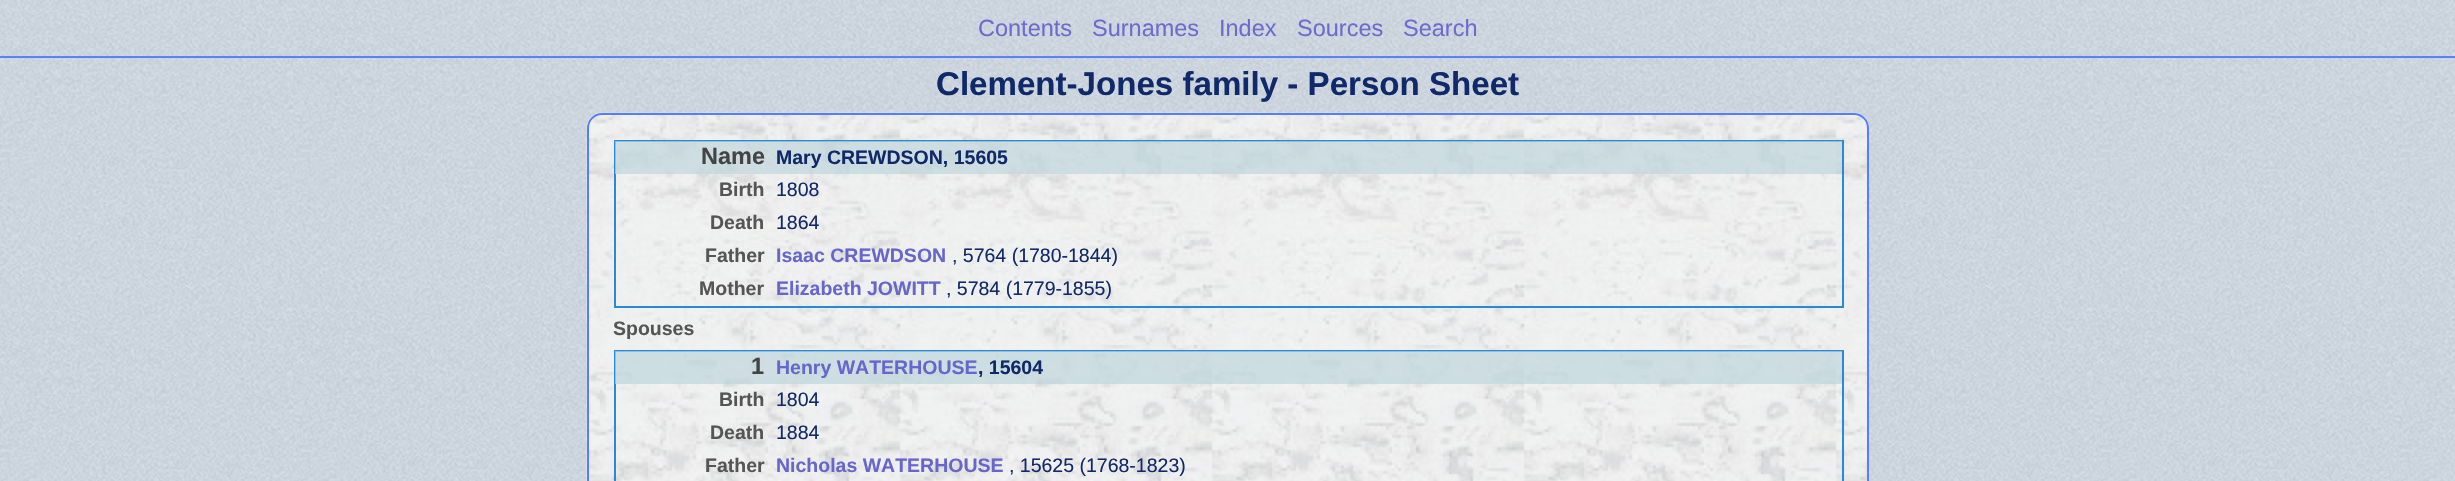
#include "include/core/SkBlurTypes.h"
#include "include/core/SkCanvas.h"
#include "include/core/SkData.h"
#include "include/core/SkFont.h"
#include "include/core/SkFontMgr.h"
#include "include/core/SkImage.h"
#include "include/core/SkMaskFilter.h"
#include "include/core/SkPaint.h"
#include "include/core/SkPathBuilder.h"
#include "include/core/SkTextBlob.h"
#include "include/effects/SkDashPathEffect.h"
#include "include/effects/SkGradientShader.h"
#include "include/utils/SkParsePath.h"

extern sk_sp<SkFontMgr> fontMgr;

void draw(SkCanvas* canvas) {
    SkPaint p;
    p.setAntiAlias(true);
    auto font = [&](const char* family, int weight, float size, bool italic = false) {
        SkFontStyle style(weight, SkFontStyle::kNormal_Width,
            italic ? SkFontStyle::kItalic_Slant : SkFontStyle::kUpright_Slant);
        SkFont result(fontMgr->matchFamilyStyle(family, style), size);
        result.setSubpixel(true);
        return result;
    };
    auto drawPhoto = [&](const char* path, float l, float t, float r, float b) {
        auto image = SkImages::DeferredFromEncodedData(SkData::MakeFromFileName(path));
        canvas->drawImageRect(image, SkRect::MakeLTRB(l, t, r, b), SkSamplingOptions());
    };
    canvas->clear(0xFFFFFFFF);
    drawPhoto("media/1.png", 0, 0, 2455, 481);
    p.setColor(0xF2567EFC);
    canvas->drawRect(SkRect::MakeLTRB(0, 56, 2455, 58), p);
    drawPhoto("media/2.png", 0, 56, 2455, 57);
    canvas->drawRect(SkRect::MakeLTRB(0, 56, 2455, 58), p);
    auto font1 = font("Liberation Sans", 400, 23.5f);
    p.setColor(0xFF6B6CCD);
    {
        const struct { const char* s; float x, y; } items[] = {
            {"Contents", 978, 36},
            {"Surnames", 1092, 36},
            {"Index", 1219, 36},
            {"Sources", 1297, 36},
            {"Search", 1403, 36},
        };
        for (auto [s, x, y] : items) {
            canvas->drawString(s, x, y, font1, p);
        }
    }
    auto font2 = font("Liberation Sans", 700, 33.1f);
    p.setColor(0xFF102A69);
    canvas->drawString("Clement-Jones family - Person Sheet", 936, 95, font2, p);
    drawPhoto("media/3.png", 586, 112, 1869, 481);
    p.setStyle(SkPaint::kStroke_Style);
    p.setStrokeWidth(2);
    p.setColor(0xFF567EFC);
    canvas->drawRoundRect(SkRect::MakeLTRB(588, 114, 1868, 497), 14, 14, p);
    p.setColor(0xFF2989D3);
    canvas->drawRect(SkRect::MakeLTRB(615, 141, 1843, 307), p);
    p.setStyle(SkPaint::kFill_Style);
    p.setColor(0xB3BFD6DD);
    canvas->drawRect(SkRect::MakeLTRB(615, 141, 1842, 174), p);
    auto font3 = font("Liberation Sans", 700, 23.5f);
    p.setColor(0xFF444444);
    canvas->drawString("Name", 701, 164, font3, p);
    auto font4 = font("Liberation Sans", 700, 19.5f);
    p.setColor(0xFF102A69);
    canvas->drawString("Mary CREWDSON, 15605", 776, 164, font4, p);
    p.setColor(0xFF555555);
    canvas->drawString("Birth", 719, 196, font4, p);
    auto font5 = font("Liberation Sans", 400, 19.5f);
    p.setColor(0xFF102A69);
    canvas->drawString("1808", 776, 196, font5, p);
    p.setColor(0xFF555555);
    canvas->drawString("Death", 710, 229, font4, p);
    p.setColor(0xFF102A69);
    canvas->drawString("1864", 776, 229, font5, p);
    p.setColor(0xFF555555);
    canvas->drawString("Father", 705, 262, font4, p);
    p.setColor(0xFF6666CC);
    canvas->drawString("Isaac CREWDSON", 776, 262, font4, p);
    p.setColor(0xFF102A69);
    canvas->drawString(", 5764 (1780-1844)", 952, 262, font5, p);
    p.setColor(0xFF555555);
    canvas->drawString("Mother", 699, 295, font4, p);
    p.setColor(0xFF6666CC);
    canvas->drawString("Elizabeth JOWITT", 776, 295, font4, p);
    p.setColor(0xFF102A69);
    canvas->drawString(", 5784 (1779-1855)", 946, 295, font5, p);
    p.setColor(0xFF555555);
    canvas->drawString("Spouses", 613, 335, font4, p);
    p.setStyle(SkPaint::kStroke_Style);
    p.setColor(0xFF2989D3);
    canvas->drawRect(SkRect::MakeLTRB(615, 351, 1843, 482), p);
    p.setStyle(SkPaint::kFill_Style);
    p.setColor(0xB3BFD6DD);
    canvas->drawRect(SkRect::MakeLTRB(615, 351, 1842, 384), p);
    p.setColor(0xFF444444);
    canvas->drawString("1", 751, 374, font3, p);
    p.setColor(0xFF6666CC);
    canvas->drawString("Henry WATERHOUSE", 776, 374, font4, p);
    p.setColor(0xFF102A69);
    canvas->drawString(", 15604", 978, 374, font4, p);
    p.setColor(0xFF555555);
    canvas->drawString("Birth", 719, 406, font4, p);
    p.setColor(0xFF102A69);
    canvas->drawString("1804", 776, 406, font5, p);
    p.setColor(0xFF555555);
    canvas->drawString("Death", 710, 439, font4, p);
    p.setColor(0xFF102A69);
    canvas->drawString("1884", 776, 439, font5, p);
    p.setColor(0xFF555555);
    canvas->drawString("Father", 705, 472, font4, p);
    p.setColor(0xFF6666CC);
    canvas->drawString("Nicholas WATERHOUSE", 776, 472, font4, p);
    p.setColor(0xFF102A69);
    canvas->drawString(", 15625 (1768-1823)", 1009, 472, font5, p);
}
